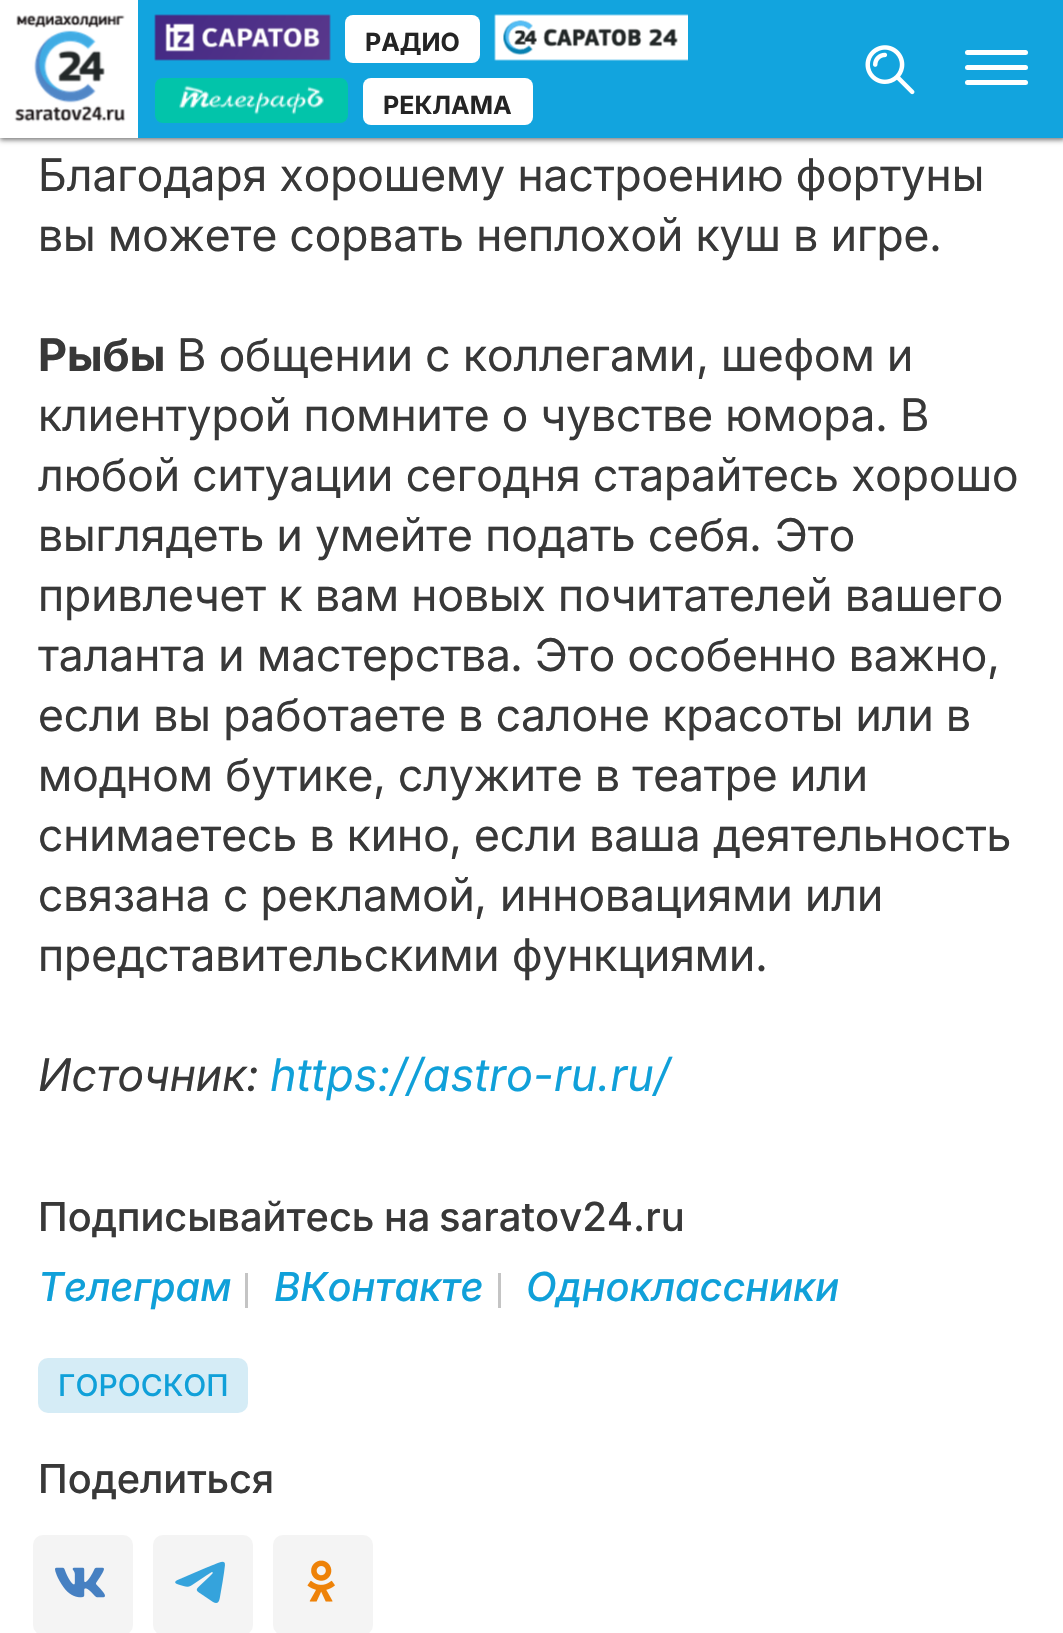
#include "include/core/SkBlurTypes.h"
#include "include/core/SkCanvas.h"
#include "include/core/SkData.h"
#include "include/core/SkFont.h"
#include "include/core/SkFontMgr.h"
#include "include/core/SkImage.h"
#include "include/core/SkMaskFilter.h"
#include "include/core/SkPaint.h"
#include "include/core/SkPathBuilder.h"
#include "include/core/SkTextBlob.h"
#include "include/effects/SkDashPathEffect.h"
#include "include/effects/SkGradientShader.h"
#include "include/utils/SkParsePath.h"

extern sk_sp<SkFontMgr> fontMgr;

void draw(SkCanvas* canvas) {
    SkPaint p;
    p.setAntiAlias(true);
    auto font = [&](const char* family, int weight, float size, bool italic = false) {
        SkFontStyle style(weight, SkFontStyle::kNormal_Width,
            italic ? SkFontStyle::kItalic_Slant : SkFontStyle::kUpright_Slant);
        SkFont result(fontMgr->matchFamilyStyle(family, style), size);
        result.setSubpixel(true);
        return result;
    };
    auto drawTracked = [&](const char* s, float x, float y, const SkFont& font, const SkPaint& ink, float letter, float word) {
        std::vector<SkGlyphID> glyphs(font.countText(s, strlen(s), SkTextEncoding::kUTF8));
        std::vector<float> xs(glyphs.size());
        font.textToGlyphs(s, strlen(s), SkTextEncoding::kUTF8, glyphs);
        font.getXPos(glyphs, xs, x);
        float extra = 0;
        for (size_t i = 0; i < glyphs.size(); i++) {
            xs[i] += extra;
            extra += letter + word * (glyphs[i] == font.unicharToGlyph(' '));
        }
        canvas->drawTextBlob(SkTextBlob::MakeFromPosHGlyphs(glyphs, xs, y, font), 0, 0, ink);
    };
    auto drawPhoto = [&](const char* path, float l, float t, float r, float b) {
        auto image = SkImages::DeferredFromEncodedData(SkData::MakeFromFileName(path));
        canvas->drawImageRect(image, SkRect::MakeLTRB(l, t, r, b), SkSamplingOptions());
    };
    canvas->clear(0xFFFFFFFF);
    p.setColor(0xFF787878);
    p.setMaskFilter(SkMaskFilter::MakeBlur(kNormal_SkBlurStyle, 2.5f));
    canvas->drawRect(SkRect::MakeLTRB(0, 3, 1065, 140), p);
    p.setMaskFilter(nullptr);
    p.setColor(0xFF12A4DE);
    canvas->drawRect(SkRect::MakeLTRB(138, 0, 1063, 138), p);
    p.setColor(0xFFFFFFFF);
    canvas->drawRect(SkRect::MakeLTRB(0, 0, 138, 138), p);
    drawPhoto("media/1.png", 14, 15, 126, 122);
    drawPhoto("media/2.png", 154, 14, 331, 61);
    canvas->drawRoundRect(SkRect::MakeLTRB(345, 15, 480, 63), 8, 8, p);
    auto font1 = font("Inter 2", 700, 25);
    p.setColor(0xFF242424);
    canvas->drawString("РАДИО", 365, 51, font1, p);
    drawPhoto("media/3.png", 494, 14, 688, 61);
    p.setColor(0xFF02C4AA);
    canvas->drawRoundRect(SkRect::MakeLTRB(155, 78, 348, 123), 8, 8, p);
    drawPhoto("media/4.png", 179, 85, 324, 115);
    p.setColor(0xFFFFFFFF);
    canvas->drawRoundRect(SkRect::MakeLTRB(363, 78, 533, 125), 8, 8, p);
    p.setColor(0xFF242424);
    canvas->drawString("РЕКЛАМА", 383, 114, font1, p);
    drawPhoto("media/5.png", 865, 45, 915, 95);
    p.setColor(0xFFFFFFFF);
    canvas->drawRoundRect(SkRect::MakeLTRB(965, 50, 1028, 55), 2.5f, 2.5f, p);
    canvas->drawRoundRect(SkRect::MakeLTRB(965, 65, 1028, 70), 2.5f, 2.5f, p);
    canvas->drawRoundRect(SkRect::MakeLTRB(965, 80, 1028, 85), 2.5f, 2.5f, p);
    auto font2 = font("Inter", 400, 45);
    p.setColor(0xFF383838);
    canvas->drawString("Благодаря хорошему настроению фортуны", 38, 191, font2, p);
    canvas->drawString("вы можете сорвать неплохой куш в игре", 38, 251, font2, p);
    auto font3 = font("Inter 2", 400, 45);
    canvas->drawString(".", 929, 251, font3, p);
    auto font4 = font("Inter", 700, 45);
    canvas->drawString("Рыбы", 38, 371, font4, p);
    canvas->drawString("В общении с коллегами", 177, 371, font2, p);
    canvas->drawString(",", 696, 371, font3, p);
    canvas->drawString("шефом и", 721, 371, font2, p);
    canvas->drawString("клиентурой помните о чувстве юмора", 38, 431, font2, p);
    canvas->drawString(".", 875, 431, font3, p);
    {
        const struct { const char* s; float x, y; } items[] = {
            {"В", 900, 431},
            {"любой ситуации сегодня старайтесь хорошо", 38, 491},
            {"выглядеть и умейте подать себя", 38, 551},
        };
        for (auto [s, x, y] : items) {
            canvas->drawString(s, x, y, font2, p);
        }
    }
    canvas->drawString(".", 749, 551, font3, p);
    {
        const struct { const char* s; float x, y; } items[] = {
            {"Это", 775, 551},
            {"привлечет к вам новых почитателей вашего", 38, 611},
            {"таланта и мастерства", 38, 671},
        };
        for (auto [s, x, y] : items) {
            canvas->drawString(s, x, y, font2, p);
        }
    }
    canvas->drawString(".", 510, 671, font3, p);
    canvas->drawString("Это особенно важно", 535, 671, font2, p);
    canvas->drawString(",", 987, 671, font3, p);
    canvas->drawString("если вы работаете в салоне красоты или в", 38, 731, font2, p);
    canvas->drawString("модном бутике", 38, 791, font2, p);
    canvas->drawString(",", 373, 791, font3, p);
    canvas->drawString("служите в театре или", 398, 791, font2, p);
    canvas->drawString("снимаетесь в кино", 38, 851, font2, p);
    canvas->drawString(",", 449, 851, font3, p);
    canvas->drawString("если ваша деятельность", 474, 851, font2, p);
    canvas->drawString("связана с рекламой", 38, 911, font2, p);
    canvas->drawString(",", 474, 911, font3, p);
    canvas->drawString("инновациями или", 500, 911, font2, p);
    canvas->drawString("представительскими функциями", 38, 971, font2, p);
    canvas->drawString(".", 755, 971, font3, p);
    auto font5 = font("Inter", 400, 45, true);
    canvas->drawString("Источник", 38, 1091, font5, p);
    auto font6 = font("Inter 2", 400, 45, true);
    canvas->drawString(":", 246, 1091, font6, p);
    p.setColor(0xFF10A0D9);
    canvas->drawString("https://astro-ru.ru/", 270, 1091, font6, p);
    auto font7 = font("Inter", 500, 40);
    p.setColor(0xFF383838);
    drawTracked("Подписывайтесь на", 38, 1231, font7, p, 0, -1);
    auto font8 = font("Inter 2", 500, 40);
    canvas->drawString("saratov24.ru", 439, 1231, font8, p);
    auto font9 = font("Inter", 500, 40, true);
    p.setColor(0xFF10A0D9);
    canvas->drawString("Телеграм", 38, 1301, font9, p);
    p.setColor(0xFFC4C4C4);
    canvas->drawRect(SkRect::MakeLTRB(245, 1273, 248, 1308), p);
    p.setColor(0xFF10A0D9);
    canvas->drawString("ВКонтакте", 274, 1301, font9, p);
    p.setColor(0xFFC4C4C4);
    canvas->drawRect(SkRect::MakeLTRB(498, 1273, 501, 1308), p);
    p.setColor(0xFF10A0D9);
    canvas->drawString("Одноклассники", 526, 1301, font9, p);
    p.setColor(0xFFD5ECF6);
    canvas->drawRoundRect(SkRect::MakeLTRB(38, 1358, 248, 1413), 10, 10, p);
    auto font10 = font("Inter 2", 500, 30);
    p.setColor(0xFF10A0D9);
    canvas->drawString("ГОРОСКОП", 58, 1396, font10, p);
    p.setColor(0xFF383838);
    canvas->drawString("Поделиться", 38, 1493, font7, p);
    p.setColor(0xFFF4F4F4);
    canvas->drawRoundRect(SkRect::MakeLTRB(33, 1535, 133, 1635), 10, 10, p);
    drawPhoto("media/6.png", 55, 1567, 105, 1598);
    canvas->drawRoundRect(SkRect::MakeLTRB(153, 1535, 253, 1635), 10, 10, p);
    drawPhoto("media/7.png", 175, 1561, 225, 1603);
    canvas->drawRoundRect(SkRect::MakeLTRB(273, 1535, 373, 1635), 10, 10, p);
    drawPhoto("media/8.png", 307, 1560, 335, 1602);
}
